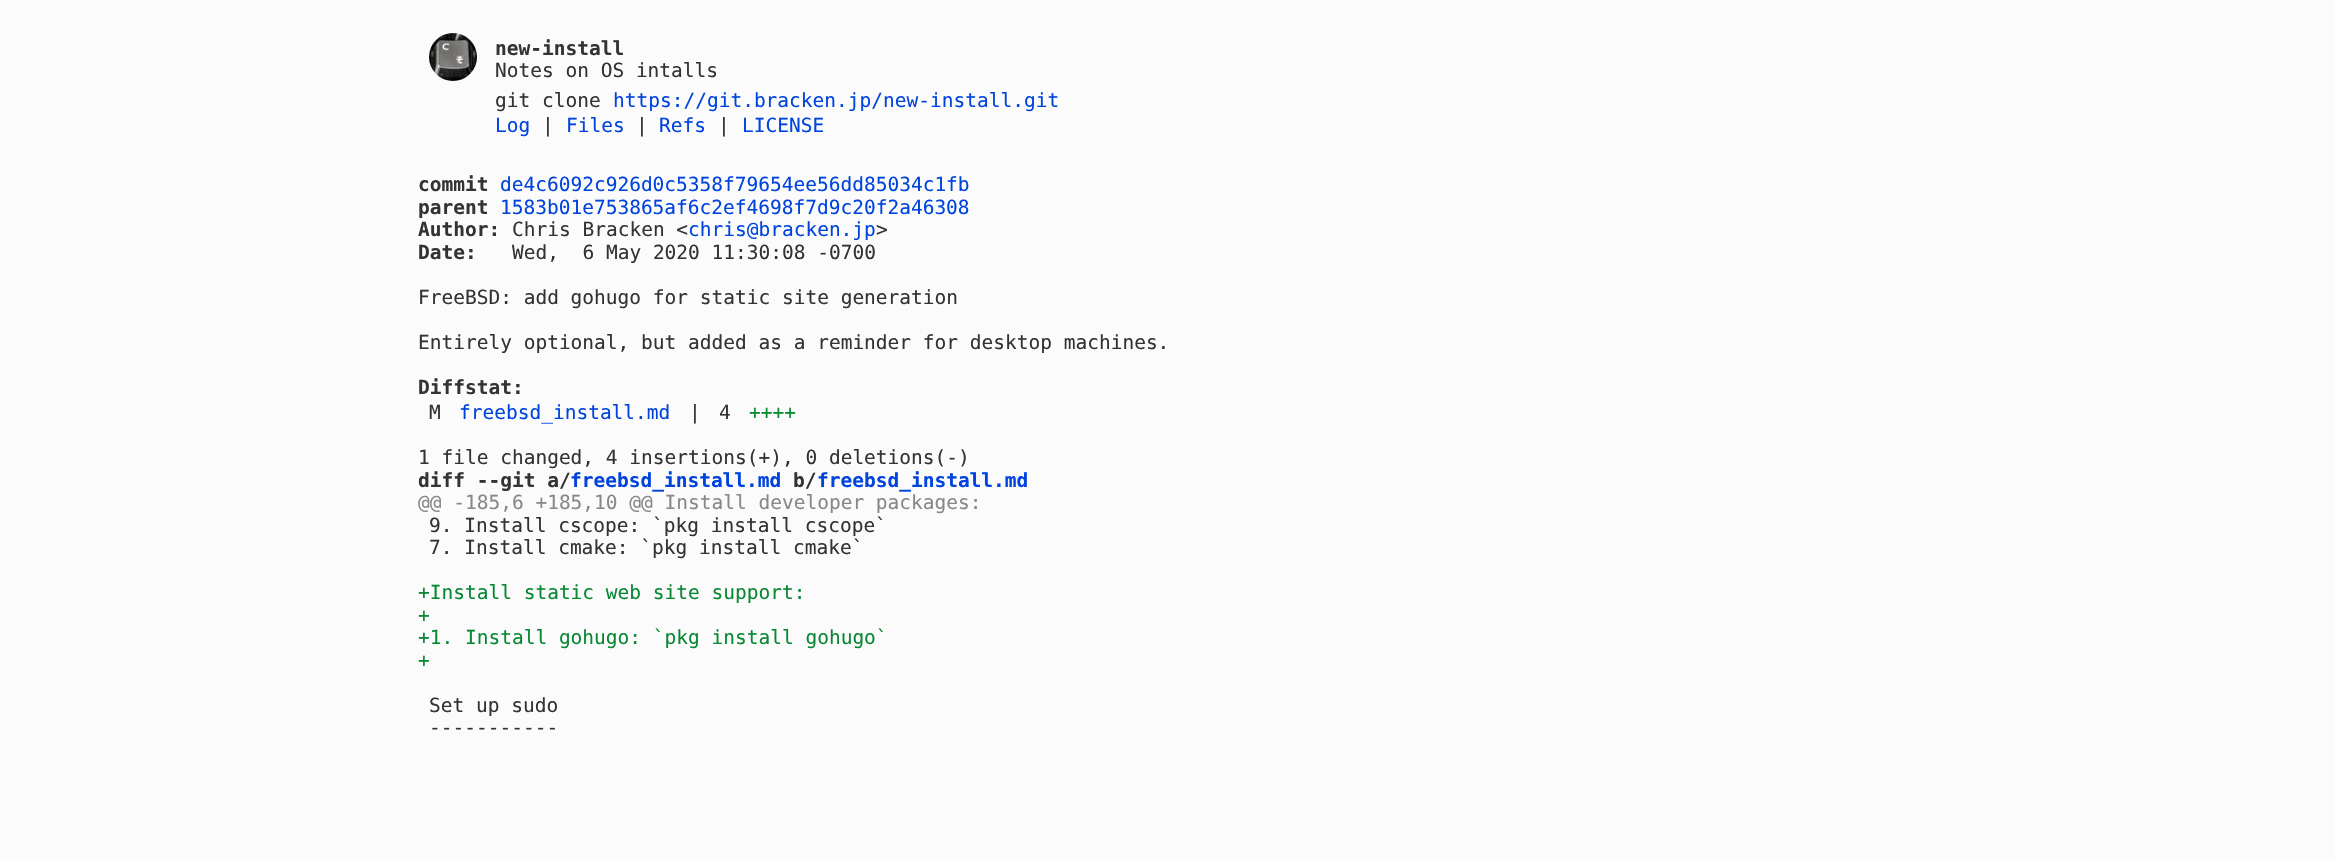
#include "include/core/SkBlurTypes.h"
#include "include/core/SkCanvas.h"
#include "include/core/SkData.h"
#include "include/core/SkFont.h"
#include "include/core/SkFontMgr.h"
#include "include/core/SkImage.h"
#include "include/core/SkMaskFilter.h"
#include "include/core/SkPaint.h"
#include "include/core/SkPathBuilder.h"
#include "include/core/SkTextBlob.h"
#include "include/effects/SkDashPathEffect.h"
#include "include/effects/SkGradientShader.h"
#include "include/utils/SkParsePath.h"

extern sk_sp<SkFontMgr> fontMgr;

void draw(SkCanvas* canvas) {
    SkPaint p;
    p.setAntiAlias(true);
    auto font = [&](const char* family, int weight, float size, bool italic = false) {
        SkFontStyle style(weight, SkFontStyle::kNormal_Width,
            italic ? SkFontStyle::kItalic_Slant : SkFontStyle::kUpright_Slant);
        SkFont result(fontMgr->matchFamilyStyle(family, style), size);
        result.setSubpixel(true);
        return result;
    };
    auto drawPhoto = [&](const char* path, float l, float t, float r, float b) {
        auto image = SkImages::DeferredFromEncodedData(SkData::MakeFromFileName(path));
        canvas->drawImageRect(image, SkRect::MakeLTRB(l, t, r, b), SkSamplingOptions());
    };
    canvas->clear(0xFFFBFBFB);
    drawPhoto("media/1.png", 429, 33, 477, 81);
    auto font1 = font("DejaVu Sans Mono", 700, 19.5f);
    p.setColor(0xFF333333);
    canvas->drawString("new-install", 495, 55, font1, p);
    auto font2 = font("DejaVu Sans Mono", 400, 19.5f);
    canvas->drawString("Notes on OS intalls", 495, 77, font2, p);
    canvas->drawString("git clone", 495, 107, font2, p);
    p.setColor(0xFF0044DD);
    canvas->drawString("https://git.bracken.jp/new-install.git", 613, 107, font2, p);
    canvas->drawString("Log", 495, 132, font2, p);
    p.setColor(0xFF333333);
    canvas->drawString("|", 542, 132, font2, p);
    p.setColor(0xFF0044DD);
    canvas->drawString("Files", 566, 132, font2, p);
    p.setColor(0xFF333333);
    canvas->drawString("|", 636, 132, font2, p);
    p.setColor(0xFF0044DD);
    canvas->drawString("Refs", 659, 132, font2, p);
    p.setColor(0xFF333333);
    canvas->drawString("|", 718, 132, font2, p);
    p.setColor(0xFF0044DD);
    canvas->drawString("LICENSE", 742, 132, font2, p);
    p.setColor(0xFF333333);
    canvas->drawString("commit", 418, 191, font1, p);
    p.setColor(0xFF0044DD);
    canvas->drawString("de4c6092c926d0c5358f79654ee56dd85034c1fb", 500, 191, font2, p);
    p.setColor(0xFF333333);
    canvas->drawString("parent", 418, 214, font1, p);
    p.setColor(0xFF0044DD);
    canvas->drawString("1583b01e753865af6c2ef4698f7d9c20f2a46308", 500, 214, font2, p);
    p.setColor(0xFF333333);
    canvas->drawString("Author:", 418, 236, font1, p);
    canvas->drawString("Chris Bracken <", 512, 236, font2, p);
    p.setColor(0xFF0044DD);
    canvas->drawString("chris@bracken.jp", 688, 236, font2, p);
    p.setColor(0xFF333333);
    canvas->drawString(">", 876, 236, font2, p);
    canvas->drawString("Date:", 418, 259, font1, p);
    {
        const struct { const char* s; float x, y; } items[] = {
            {"Wed,  6 May 2020 11:30:08 -0700", 512, 259},
            {"FreeBSD: add gohugo for static site generation", 418, 304},
            {"Entirely optional, but added as a reminder for desktop machines.", 418, 349},
        };
        for (auto [s, x, y] : items) {
            canvas->drawString(s, x, y, font2, p);
        }
    }
    canvas->drawString("Diffstat:", 418, 394, font1, p);
    canvas->drawString("M", 429, 419, font2, p);
    p.setColor(0xFF0044DD);
    canvas->drawString("freebsd_install.md", 459, 419, font2, p);
    p.setColor(0xFF333333);
    canvas->drawString("|", 689, 419, font2, p);
    canvas->drawString("4", 719, 419, font2, p);
    p.setColor(0xFF088833);
    canvas->drawString("++++", 749, 419, font2, p);
    p.setColor(0xFF333333);
    canvas->drawString("1 file changed, 4 insertions(+), 0 deletions(-)", 418, 464, font2, p);
    canvas->drawString("diff --git a/", 418, 487, font1, p);
    p.setColor(0xFF0044DD);
    canvas->drawString("freebsd_install.md", 570, 487, font1, p);
    p.setColor(0xFF333333);
    canvas->drawString("b/", 793, 487, font1, p);
    p.setColor(0xFF0044DD);
    canvas->drawString("freebsd_install.md", 817, 487, font1, p);
    p.setColor(0xFF888888);
    canvas->drawString("@@ -185,6 +185,10 @@ Install developer packages:", 418, 509, font2, p);
    p.setColor(0xFF333333);
    canvas->drawString("9. Install cscope: `pkg install cscope`", 429, 532, font2, p);
    canvas->drawString("7. Install cmake: `pkg install cmake`", 429, 554, font2, p);
    p.setColor(0xFF088833);
    {
        const struct { const char* s; float x, y; } items[] = {
            {"+Install static web site support:", 418, 599},
            {"+", 418, 622},
            {"+1. Install gohugo: `pkg install gohugo`", 418, 644},
            {"+", 418, 667},
        };
        for (auto [s, x, y] : items) {
            canvas->drawString(s, x, y, font2, p);
        }
    }
    p.setColor(0xFF333333);
    canvas->drawString("Set up sudo", 429, 712, font2, p);
    canvas->drawString("-----------", 429, 734, font2, p);
}
